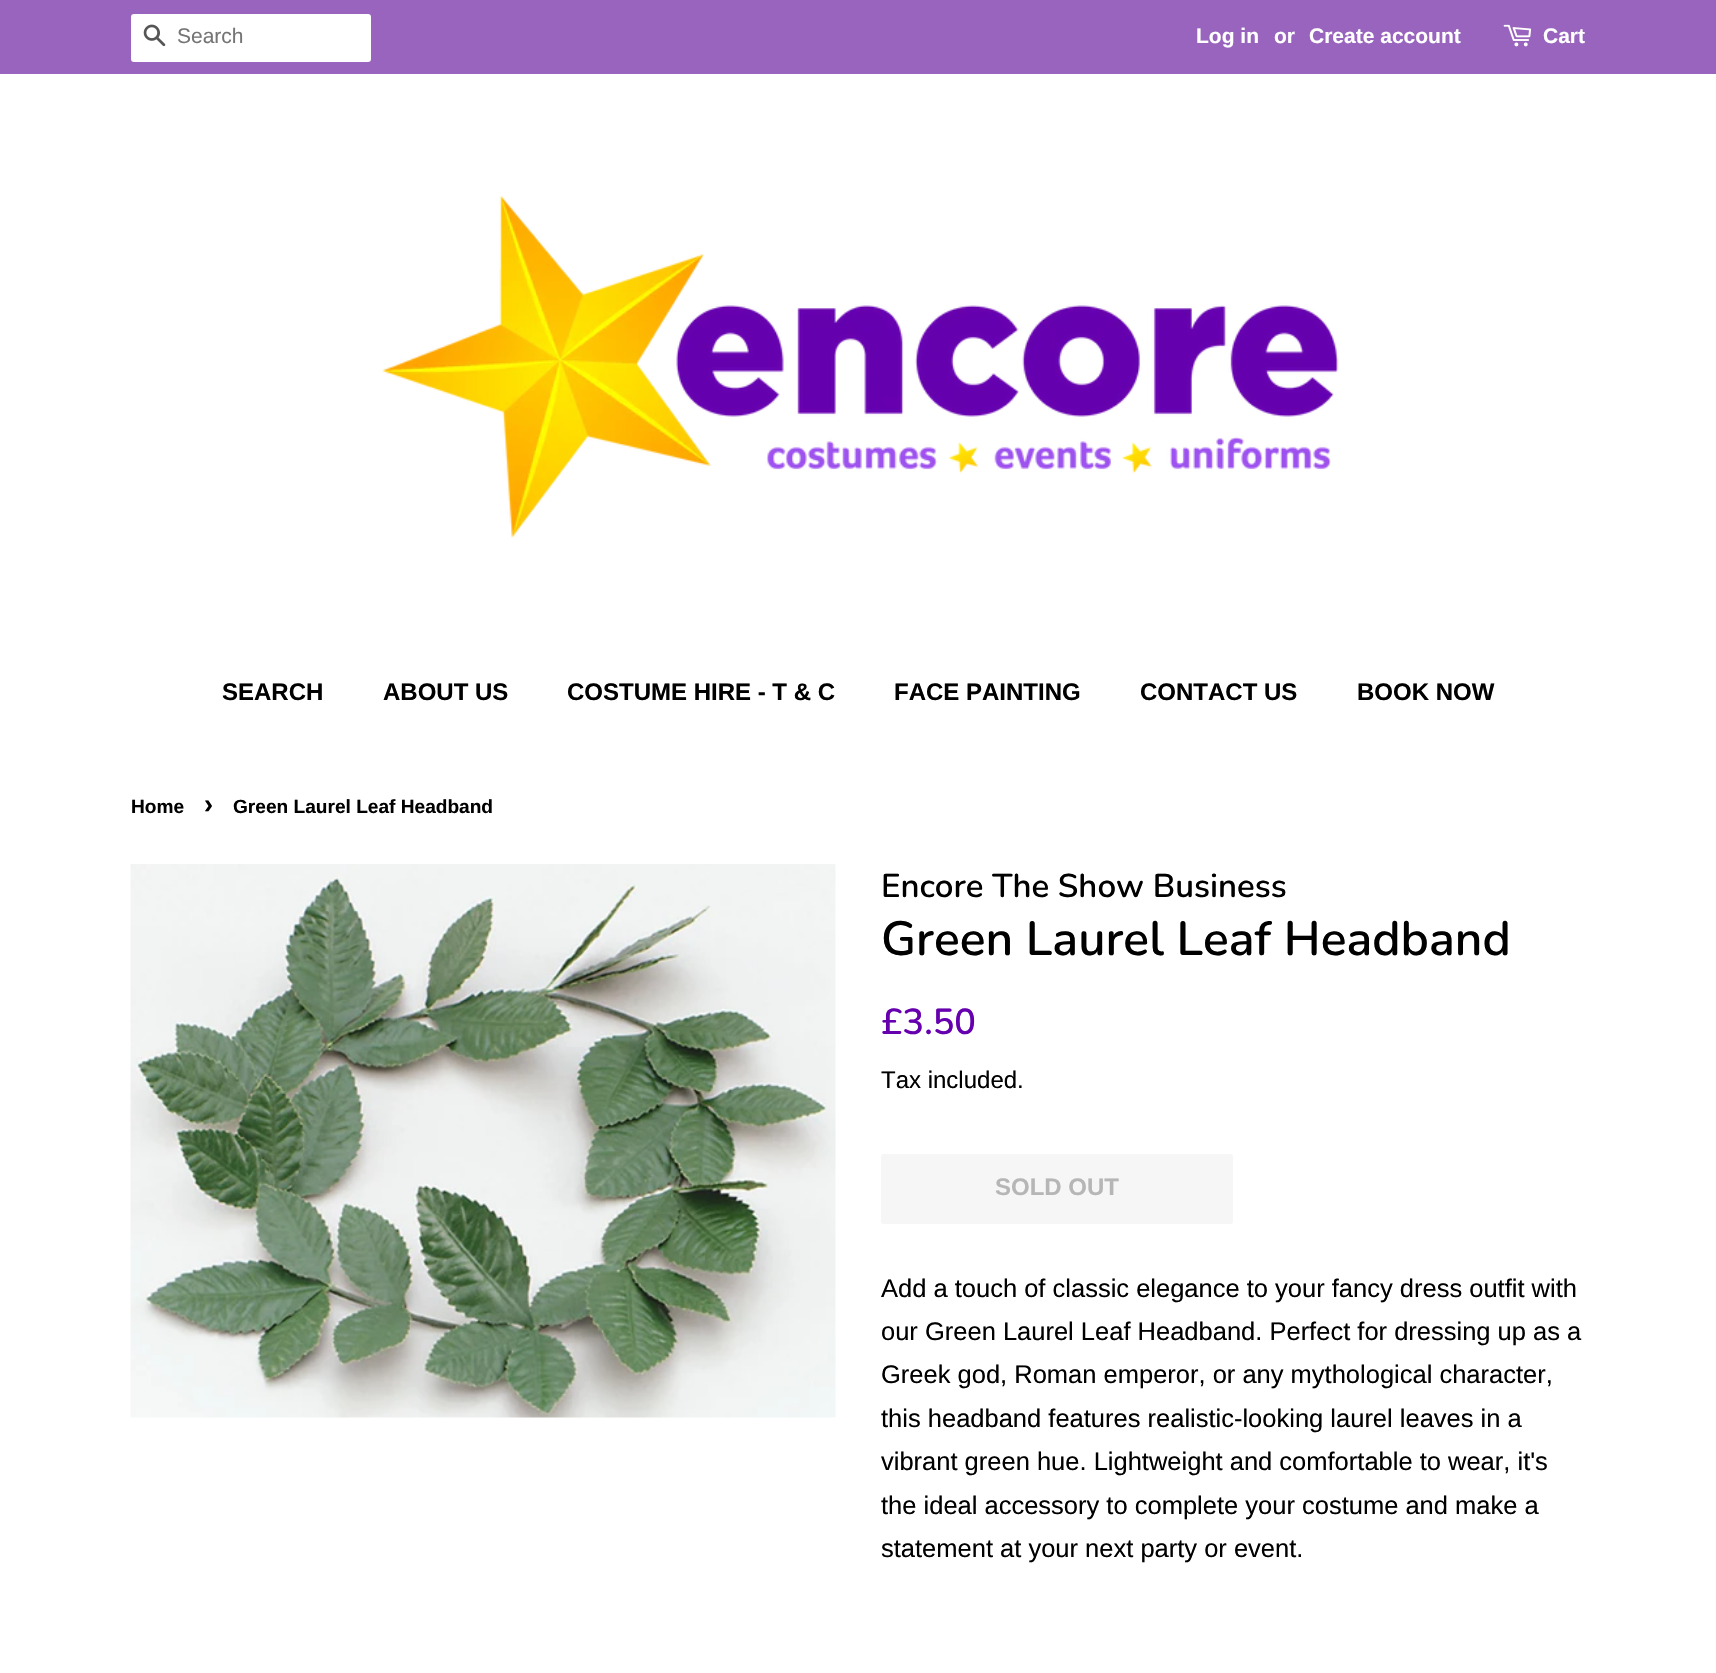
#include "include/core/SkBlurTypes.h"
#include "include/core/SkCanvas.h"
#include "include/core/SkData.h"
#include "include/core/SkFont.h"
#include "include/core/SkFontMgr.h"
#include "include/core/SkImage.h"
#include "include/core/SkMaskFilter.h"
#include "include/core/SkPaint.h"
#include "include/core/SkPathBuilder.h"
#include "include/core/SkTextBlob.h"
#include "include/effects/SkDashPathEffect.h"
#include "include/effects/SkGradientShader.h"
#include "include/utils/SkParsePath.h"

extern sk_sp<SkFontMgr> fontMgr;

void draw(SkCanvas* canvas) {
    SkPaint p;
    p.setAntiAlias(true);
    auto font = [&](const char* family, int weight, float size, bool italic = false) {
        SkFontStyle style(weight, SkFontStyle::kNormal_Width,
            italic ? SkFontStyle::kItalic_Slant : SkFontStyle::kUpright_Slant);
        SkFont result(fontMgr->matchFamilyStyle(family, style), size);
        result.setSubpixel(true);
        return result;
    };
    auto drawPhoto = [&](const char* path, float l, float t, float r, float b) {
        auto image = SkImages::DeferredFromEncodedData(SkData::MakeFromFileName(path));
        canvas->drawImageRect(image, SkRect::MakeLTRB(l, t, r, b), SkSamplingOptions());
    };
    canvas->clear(0xFFFFFFFF);
    p.setColor(0xFF9864BD);
    canvas->drawRect(SkRect::MakeLTRB(0, 0, 1716, 74), p);
    p.setColor(0xFFFFFFFF);
    canvas->drawRoundRect(SkRect::MakeLTRB(131, 14, 371, 62), 3, 3, p);
    drawPhoto("media/1.png", 143, 24, 166, 47);
    auto font1 = font("Liberation Sans", 400, 21);
    p.setColor(0xFF757575);
    canvas->drawString("Search", 177, 43, font1, p);
    auto font2 = font("Liberation Sans", 700, 21);
    p.setColor(0xFFFFFFFF);
    {
        const struct { const char* s; float x, y; } items[] = {
            {"Log in", 1196, 43},
            {"or", 1274, 43},
            {"Create account", 1309, 43},
        };
        for (auto [s, x, y] : items) {
            canvas->drawString(s, x, y, font2, p);
        }
    }
    drawPhoto("media/2.png", 1503, 24, 1532, 47);
    canvas->drawString("Cart", 1543, 43, font2, p);
    drawPhoto("media/3.png", 382, 195, 1339, 538);
    auto font3 = font("Liberation Sans", 700, 24);
    p.setColor(0xFF000000);
    {
        const struct { const char* s; float x, y; } items[] = {
            {"SEARCH", 222, 700},
            {"ABOUT US", 383, 700},
            {"COSTUME HIRE - T & C", 567, 700},
            {"FACE PAINTING", 894, 700},
            {"CONTACT US", 1140, 700},
            {"BOOK NOW", 1357, 700},
        };
        for (auto [s, x, y] : items) {
            canvas->drawString(s, x, y, font3, p);
        }
    }
    auto font4 = font("Liberation Sans", 700, 19.1f);
    canvas->drawString("Home", 131, 813, font4, p);
    auto font5 = font("Liberation Sans", 700, 27);
    canvas->drawString("›", 204, 813, font5, p);
    canvas->drawString("Green Laurel Leaf Headband", 233, 813, font4, p);
    drawPhoto("media/4.png", 130, 864, 836, 1418);
    auto font6 = font("Nunito", 600, 33);
    canvas->drawString("Encore The Show Business", 881, 897, font6, p);
    auto font7 = font("Nunito", 600, 48);
    canvas->drawString("Green Laurel Leaf Headband", 881, 955, font7, p);
    auto font8 = font("Nunito", 600, 36);
    p.setColor(0xFF6600AF);
    canvas->drawString("£3.50", 881, 1034, font8, p);
    auto font9 = font("Liberation Sans", 400, 24);
    p.setColor(0xFF000000);
    canvas->drawString("Tax included.", 881, 1088, font9, p);
    p.setColor(0xFFF6F6F6);
    canvas->drawRoundRect(SkRect::MakeLTRB(881, 1154, 1233, 1224), 3, 3, p);
    p.setColor(0xFFB6B6B6);
    canvas->drawString("SOLD OUT", 995, 1195, font3, p);
    auto font10 = font("Liberation Sans", 400, 25.5f);
    p.setColor(0xFF000000);
    {
        const struct { const char* s; float x, y; } items[] = {
            {"Add a touch of classic elegance to your fancy dress outfit with", 881, 1297},
            {"our Green Laurel Leaf Headband. Perfect for dressing up as a", 881, 1340},
            {"Greek god, Roman emperor, or any mythological character,", 881, 1383},
            {"this headband features realistic-looking laurel leaves in a", 881, 1427},
            {"vibrant green hue. Lightweight and comfortable to wear, it's", 881, 1470},
            {"the ideal accessory to complete your costume and make a", 881, 1514},
            {"statement at your next party or event.", 881, 1557},
        };
        for (auto [s, x, y] : items) {
            canvas->drawString(s, x, y, font10, p);
        }
    }
}
